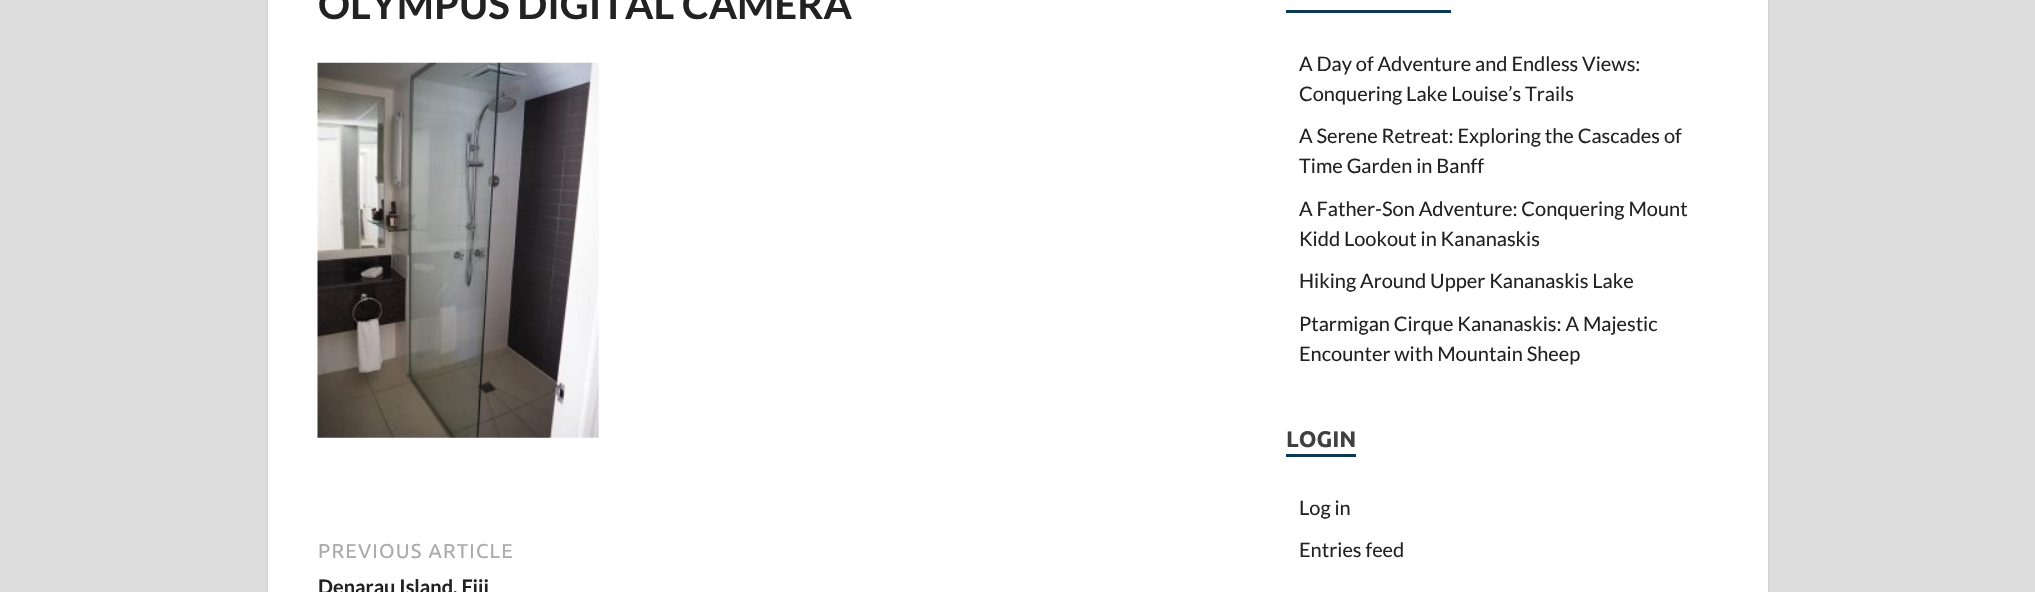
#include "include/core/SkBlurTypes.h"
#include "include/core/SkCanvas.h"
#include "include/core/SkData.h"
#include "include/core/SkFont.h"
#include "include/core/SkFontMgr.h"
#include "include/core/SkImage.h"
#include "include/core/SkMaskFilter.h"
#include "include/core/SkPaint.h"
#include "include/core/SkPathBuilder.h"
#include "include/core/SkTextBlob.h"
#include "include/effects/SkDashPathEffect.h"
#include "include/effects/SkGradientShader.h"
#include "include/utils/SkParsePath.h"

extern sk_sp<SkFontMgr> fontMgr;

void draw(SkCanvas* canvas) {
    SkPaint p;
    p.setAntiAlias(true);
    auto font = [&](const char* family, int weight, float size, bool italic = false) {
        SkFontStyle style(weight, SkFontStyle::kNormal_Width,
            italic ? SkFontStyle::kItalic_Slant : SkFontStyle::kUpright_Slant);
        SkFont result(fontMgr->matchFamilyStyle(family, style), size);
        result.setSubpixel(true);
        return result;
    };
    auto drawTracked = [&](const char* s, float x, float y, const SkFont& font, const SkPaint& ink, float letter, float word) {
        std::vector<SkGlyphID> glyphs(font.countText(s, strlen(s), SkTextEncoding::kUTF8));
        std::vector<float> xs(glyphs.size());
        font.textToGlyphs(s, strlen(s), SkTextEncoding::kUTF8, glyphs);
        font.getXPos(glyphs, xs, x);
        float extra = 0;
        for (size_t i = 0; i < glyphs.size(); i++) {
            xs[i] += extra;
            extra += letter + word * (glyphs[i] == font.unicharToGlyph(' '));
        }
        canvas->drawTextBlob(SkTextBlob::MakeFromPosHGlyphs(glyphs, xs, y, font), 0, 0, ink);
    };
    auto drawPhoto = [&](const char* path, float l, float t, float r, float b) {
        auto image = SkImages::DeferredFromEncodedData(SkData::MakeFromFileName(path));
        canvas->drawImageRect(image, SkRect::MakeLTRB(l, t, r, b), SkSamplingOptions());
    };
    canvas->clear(0xFFDDDDDD);
    p.setColor(0xFFBBBBBB);
    p.setMaskFilter(SkMaskFilter::MakeBlur(kNormal_SkBlurStyle, 1));
    canvas->drawRect(SkRect::MakeLTRB(268, -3, 1768, 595), p);
    p.setMaskFilter(nullptr);
    p.setColor(0xFFFFFFFF);
    canvas->drawRect(SkRect::MakeLTRB(268, 0, 1768, 592), p);
    auto font1 = font("Lato", 700, 40);
    p.setColor(0xFF222222);
    canvas->drawString("OLYMPUS DIGITAL CAMERA", 318, 19, font1, p);
    drawPhoto("media/1.png", 317, 62, 599, 438);
    auto font2 = font("Ubuntu", 400, 20);
    p.setColor(0xFFAAAAAA);
    drawTracked("PREVIOUS ARTICLE", 318, 558, font2, p, 1.25f, 0);
    auto font3 = font("Lato", 700, 20);
    p.setColor(0xFF222222);
    canvas->drawString("Denarau Island, Fiji", 318, 594, font3, p);
    p.setColor(0xFF0B3954);
    canvas->drawRect(SkRect::MakeLTRB(1286, 10, 1451, 13), p);
    auto font4 = font("Lato", 400, 20);
    p.setColor(0xFF222222);
    {
        const struct { const char* s; float x, y; } items[] = {
            {"A Day of Adventure and Endless Views:", 1299, 71},
            {"Conquering Lake Louise’s Trails", 1299, 101},
            {"A Serene Retreat: Exploring the Cascades of", 1299, 143},
            {"Time Garden in Banff", 1299, 173},
            {"A Father-Son Adventure: Conquering Mount", 1299, 216},
            {"Kidd Lookout in Kananaskis", 1299, 246},
            {"Hiking Around Upper Kananaskis Lake", 1299, 288},
            {"Ptarmigan Cirque Kananaskis: A Majestic", 1299, 331},
            {"Encounter with Mountain Sheep", 1299, 361},
        };
        for (auto [s, x, y] : items) {
            canvas->drawString(s, x, y, font4, p);
        }
    }
    p.setColor(0xFF0B3954);
    canvas->drawRect(SkRect::MakeLTRB(1286, 454, 1356, 457), p);
    auto font5 = font("Ubuntu", 700, 22.5f);
    p.setColor(0xFF404040);
    canvas->drawString("LOGIN", 1286, 447, font5, p);
    p.setColor(0xFF222222);
    canvas->drawString("Log in", 1299, 515, font4, p);
    canvas->drawString("Entries feed", 1299, 557, font4, p);
}
